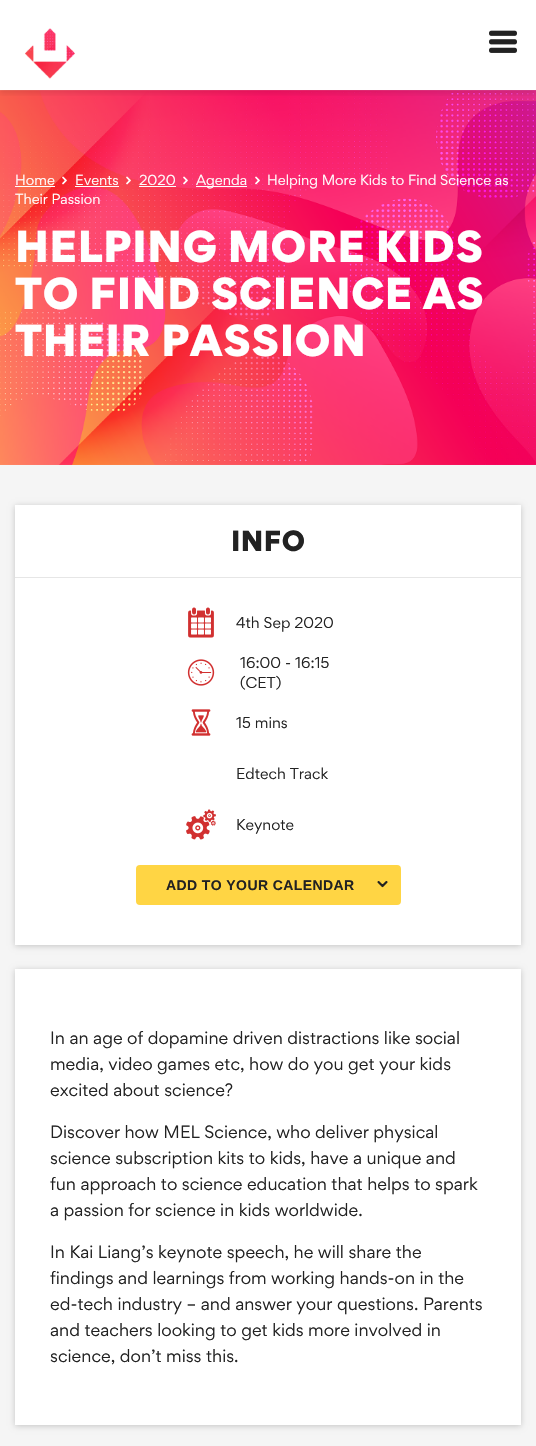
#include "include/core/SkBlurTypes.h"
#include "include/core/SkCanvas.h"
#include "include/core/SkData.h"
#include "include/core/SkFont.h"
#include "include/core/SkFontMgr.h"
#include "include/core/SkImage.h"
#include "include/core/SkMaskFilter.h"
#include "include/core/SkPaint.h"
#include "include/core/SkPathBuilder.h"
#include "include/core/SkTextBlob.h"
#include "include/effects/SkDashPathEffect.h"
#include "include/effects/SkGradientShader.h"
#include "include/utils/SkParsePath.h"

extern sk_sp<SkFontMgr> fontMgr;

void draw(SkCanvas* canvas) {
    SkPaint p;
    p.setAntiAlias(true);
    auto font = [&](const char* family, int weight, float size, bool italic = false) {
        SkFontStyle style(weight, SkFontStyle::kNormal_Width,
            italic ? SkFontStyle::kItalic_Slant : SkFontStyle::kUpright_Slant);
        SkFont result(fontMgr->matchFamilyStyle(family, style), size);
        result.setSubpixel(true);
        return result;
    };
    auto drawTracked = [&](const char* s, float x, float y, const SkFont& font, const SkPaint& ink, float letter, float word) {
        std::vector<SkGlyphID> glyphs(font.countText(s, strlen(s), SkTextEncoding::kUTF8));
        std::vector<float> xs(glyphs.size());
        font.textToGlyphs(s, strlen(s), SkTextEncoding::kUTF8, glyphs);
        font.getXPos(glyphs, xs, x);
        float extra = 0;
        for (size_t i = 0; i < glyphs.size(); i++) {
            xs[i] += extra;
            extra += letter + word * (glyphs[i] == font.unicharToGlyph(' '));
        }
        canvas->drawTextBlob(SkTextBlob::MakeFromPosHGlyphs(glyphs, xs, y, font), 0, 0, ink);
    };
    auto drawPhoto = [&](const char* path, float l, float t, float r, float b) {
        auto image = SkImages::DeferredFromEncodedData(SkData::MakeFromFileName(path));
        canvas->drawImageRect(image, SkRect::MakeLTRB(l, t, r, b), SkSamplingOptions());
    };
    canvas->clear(0xFFFFFFFF);
    drawPhoto("media/3.png", 0, 90, 536, 465);
    canvas->save();
    canvas->clipRect(SkRect::MakeLTRB(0, 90, 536, 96));
    p.setColor(0x1A000000);
    p.setMaskFilter(SkMaskFilter::MakeBlur(kNormal_SkBlurStyle, 3));
    canvas->drawRect(SkRect::MakeLTRB(0, 3, 536, 93), p);
    p.setMaskFilter(nullptr);
    canvas->restore();
    drawPhoto("media/1.png", 25, 28, 75, 79);
    drawPhoto("media/2.png", 489, 30, 517, 53);
    auto font1 = font("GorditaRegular", 400, 13);
    p.setColor(0xFFFFFFFF);
    canvas->drawString("Home", 15, 185, font1, p);
    canvas->drawRect(SkRect::MakeLTRB(15, 186, 55, 187), p);
    drawPhoto("media/4.png", 62, 176, 67, 185);
    canvas->drawString("Events", 75, 185, font1, p);
    canvas->drawRect(SkRect::MakeLTRB(75, 186, 119, 187), p);
    drawPhoto("media/5.png", 126, 176, 131, 185);
    canvas->drawString("2020", 139, 185, font1, p);
    canvas->drawRect(SkRect::MakeLTRB(139, 186, 176, 187), p);
    drawPhoto("media/6.png", 183, 176, 188, 185);
    canvas->drawRect(SkRect::MakeLTRB(196, 186, 247, 187), p);
    canvas->drawString("Agenda", 196, 185, font1, p);
    drawPhoto("media/7.png", 255, 176, 260, 185);
    canvas->drawString("Helping More Kids to Find Science as", 267, 185, font1, p);
    canvas->drawString("Their Passion", 15, 204, font1, p);
    auto font2 = font("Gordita", 900, 40);
    {
        const struct { const char* s; float x, y; } items[] = {
            {"HELPING MORE KIDS", 15, 262},
            {"TO FIND SCIENCE AS", 15, 309},
            {"THEIR PASSION", 15, 356},
        };
        for (auto [s, x, y] : items) {
            drawTracked(s, x, y, font2, p, 0.75f, 0);
        }
    }
    p.setColor(0xFFF5F5F5);
    canvas->drawRect(SkRect::MakeLTRB(0, 465, 536, 1446), p);
    p.setColor(0x33000000);
    p.setMaskFilter(SkMaskFilter::MakeBlur(kNormal_SkBlurStyle, 3));
    canvas->drawRect(SkRect::MakeLTRB(15, 506, 521, 946), p);
    p.setMaskFilter(nullptr);
    p.setColor(0xFFFFFFFF);
    canvas->drawRect(SkRect::MakeLTRB(15, 505, 521, 945), p);
    p.setColor(0xFFE6E6E6);
    canvas->drawRect(SkRect::MakeLTRB(15, 577, 521, 578), p);
    auto font3 = font("Gordita", 900, 26);
    p.setColor(0xFF222222);
    drawTracked("INFO", 231, 551, font3, p, 0.5f, 0);
    drawPhoto("media/8.png", 188, 607, 214, 638);
    auto font4 = font("GorditaRegular", 400, 14);
    canvas->drawString("4th Sep 2020", 236, 628, font4, p);
    drawPhoto("media/9.png", 187, 659, 215, 686);
    canvas->drawString("16:00 - 16:15", 240, 668, font4, p);
    canvas->drawString("(CET)", 240, 688, font4, p);
    drawPhoto("media/10.png", 191, 709, 211, 736);
    canvas->drawString("15 mins", 236, 728, font4, p);
    canvas->drawString("Edtech Track", 236, 779, font4, p);
    drawPhoto("media/11.png", 186, 809, 216, 840);
    canvas->drawString("Keynote", 236, 830, font4, p);
    p.setColor(0xFFFFD544);
    canvas->drawRoundRect(SkRect::MakeLTRB(136, 865, 401, 905), 4, 4, p);
    auto font5 = font("Liberation Sans", 700, 14);
    p.setColor(0xFF222222);
    drawTracked("ADD TO YOUR CALENDAR", 166, 890, font5, p, 0.4f, 0);
    drawPhoto("media/12.png", 377, 881, 388, 888);
    p.setColor(0x33000000);
    p.setMaskFilter(SkMaskFilter::MakeBlur(kNormal_SkBlurStyle, 3));
    canvas->drawRect(SkRect::MakeLTRB(15, 970, 521, 1426), p);
    p.setMaskFilter(nullptr);
    p.setColor(0xFFFFFFFF);
    canvas->drawRect(SkRect::MakeLTRB(15, 969, 521, 1425), p);
    auto font6 = font("GorditaRegular", 400, 16);
    p.setColor(0xFF222222);
    {
        const struct { const char* s; float x, y; } items[] = {
            {"In an age of dopamine driven distractions like social", 50, 1044},
            {"media, video games etc, how do you get your kids", 50, 1070},
            {"excited about science?", 50, 1096},
            {"Discover how MEL Science, who deliver physical", 50, 1138},
            {"science subscription kits to kids, have a unique and", 50, 1164},
            {"fun approach to science education that helps to spark", 50, 1190},
            {"a passion for science in kids worldwide.", 50, 1216},
            {"In Kai Liang’s keynote speech, he will share the", 50, 1258},
            {"findings and learnings from working hands-on in the", 50, 1284},
            {"ed-tech industry – and answer your questions. Parents", 50, 1310},
            {"and teachers looking to get kids more involved in", 50, 1336},
            {"science, don’t miss this.", 50, 1362},
        };
        for (auto [s, x, y] : items) {
            canvas->drawString(s, x, y, font6, p);
        }
    }
}
